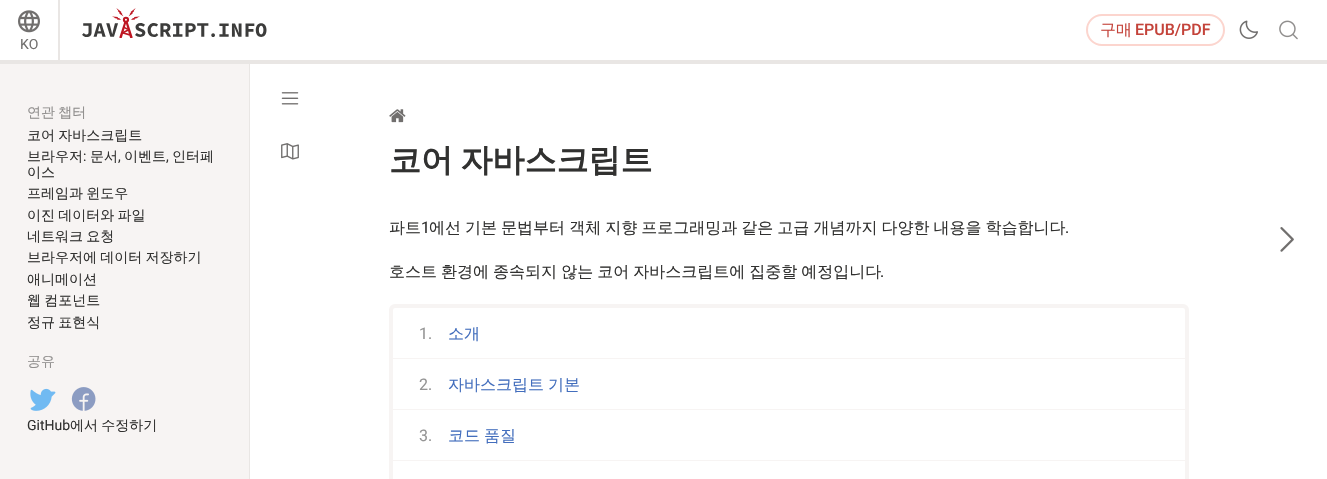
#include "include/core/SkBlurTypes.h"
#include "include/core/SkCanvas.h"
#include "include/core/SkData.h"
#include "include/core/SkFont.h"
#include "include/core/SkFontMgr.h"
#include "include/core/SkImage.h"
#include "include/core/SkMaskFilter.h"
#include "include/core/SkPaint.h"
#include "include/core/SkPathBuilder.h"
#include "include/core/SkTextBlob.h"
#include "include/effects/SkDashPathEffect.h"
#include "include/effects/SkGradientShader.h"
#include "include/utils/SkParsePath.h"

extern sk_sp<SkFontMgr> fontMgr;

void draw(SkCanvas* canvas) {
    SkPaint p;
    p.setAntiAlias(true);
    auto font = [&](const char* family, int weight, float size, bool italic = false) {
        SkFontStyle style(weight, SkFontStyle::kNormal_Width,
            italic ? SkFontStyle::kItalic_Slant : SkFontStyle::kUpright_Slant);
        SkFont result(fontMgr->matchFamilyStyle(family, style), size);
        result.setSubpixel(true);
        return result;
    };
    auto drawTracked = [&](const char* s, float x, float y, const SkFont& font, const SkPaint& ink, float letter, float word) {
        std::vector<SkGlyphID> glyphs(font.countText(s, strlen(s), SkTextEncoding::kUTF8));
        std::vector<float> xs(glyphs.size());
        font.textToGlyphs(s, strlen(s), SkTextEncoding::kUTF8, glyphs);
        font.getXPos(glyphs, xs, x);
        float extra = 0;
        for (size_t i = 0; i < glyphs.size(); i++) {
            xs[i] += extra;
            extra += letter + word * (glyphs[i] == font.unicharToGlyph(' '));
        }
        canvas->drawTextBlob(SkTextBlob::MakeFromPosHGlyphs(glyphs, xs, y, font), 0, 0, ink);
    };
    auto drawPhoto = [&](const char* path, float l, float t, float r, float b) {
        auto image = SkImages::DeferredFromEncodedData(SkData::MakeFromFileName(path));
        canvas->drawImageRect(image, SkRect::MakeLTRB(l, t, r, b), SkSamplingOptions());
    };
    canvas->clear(0xFFFFFFFF);
    p.setColor(0xFFE9E6E4);
    canvas->drawRect(SkRect::MakeLTRB(0, 60, 1327, 64), p);
    drawPhoto("media/1.png", 82, 8, 267, 38);
    p.setStyle(SkPaint::kStroke_Style);
    p.setStrokeWidth(2);
    p.setColor(0xFFFCD5CE);
    canvas->drawRoundRect(SkRect::MakeLTRB(1087, 15, 1224, 45), 15, 15, p);
    auto font1 = font("WenQuanYi Zen Hei", 500, 16);
    p.setStyle(SkPaint::kFill_Style);
    p.setColor(0xFFC4433A);
    canvas->drawString("구매", 1100, 35, font1, p);
    auto font2 = font("Roboto", 500, 16);
    canvas->drawString("EPUB/PDF", 1135, 35, font2, p);
    drawPhoto("media/2.png", 1239, 20, 1258, 39);
    drawPhoto("media/3.png", 1279, 20, 1298, 40);
    p.setColor(0xFFE9E6E4);
    canvas->drawRect(SkRect::MakeLTRB(58, 0, 60, 60), p);
    drawPhoto("media/4.png", 18, 10, 40, 33);
    auto font3 = font("Roboto", 400, 14);
    p.setColor(0xFF716F6E);
    canvas->drawString("KO", 20, 49, font3, p);
    p.setColor(0xFFF7F4F3);
    canvas->drawRect(SkRect::MakeLTRB(0, 64, 249, 479), p);
    p.setColor(0xFFE9E6E4);
    canvas->drawRect(SkRect::MakeLTRB(249, 64, 250, 479), p);
    drawPhoto("media/5.png", 281, 92, 299, 105);
    auto font4 = font("WenQuanYi Zen Hei", 500, 14);
    p.setColor(0xFF908E8D);
    drawTracked("연관 챕터", 27, 117, font4, p, 0, -1);
    p.setColor(0xFF313130);
    drawTracked("코어 자바스크립트", 27, 140, font4, p, 0, -1);
    canvas->drawString("브라우저", 27, 161, font4, p);
    canvas->drawString(":", 83, 161, font3, p);
    canvas->drawString("문서", 90, 161, font4, p);
    canvas->drawString(",", 118, 161, font3, p);
    canvas->drawString("이벤트", 124, 161, font4, p);
    canvas->drawString(",", 166, 161, font3, p);
    canvas->drawString("인터페", 172, 161, font4, p);
    canvas->drawString("이스", 27, 177, font4, p);
    {
        const struct { const char* s; float x, y; } items[] = {
            {"프레임과 윈도우", 27, 198},
            {"이진 데이터와 파일", 27, 220},
            {"네트워크 요청", 27, 241},
            {"브라우저에 데이터 저장하기", 27, 262},
        };
        for (auto [s, x, y] : items) {
            drawTracked(s, x, y, font4, p, 0, -1);
        }
    }
    canvas->drawString("애니메이션", 27, 284, font4, p);
    drawTracked("웹 컴포넌트", 27, 305, font4, p, 0, -1);
    drawTracked("정규 표현식", 27, 327, font4, p, 0, -1);
    p.setColor(0xFF908E8D);
    canvas->drawString("공유", 27, 366, font4, p);
    drawPhoto("media/6.png", 30, 388, 56, 411);
    drawPhoto("media/7.png", 71, 387, 96, 411);
    p.setColor(0xFF313130);
    canvas->drawString("GitHub", 27, 430, font3, p);
    drawTracked("에서 수정하기", 70, 430, font4, p, 0, -1);
    drawPhoto("media/8.png", 281, 143, 299, 160);
    drawPhoto("media/9.png", 389, 109, 406, 123);
    auto font5 = font("WenQuanYi Zen Hei", 700, 32);
    drawTracked("코어 자바스크립트", 389, 171, font5, p, 0, -2);
    canvas->drawString("파트", 389, 233, font1, p);
    auto font6 = font("Roboto", 400, 16);
    canvas->drawString("1", 421, 233, font6, p);
    drawTracked("에선 기본 문법부터 객체 지향 프로그래밍과 같은 고급 개념까지 다양한 내용을 학습합니다", 429, 233, font1, p, 0, -0.75f);
    canvas->drawString(".", 1065, 233, font6, p);
    drawTracked("호스트 환경에 종속되지 않는 코어 자바스크립트에 집중할 예정입니다", 389, 277, font1, p, 0, -0.75f);
    canvas->drawString(".", 880, 277, font6, p);
    p.setStyle(SkPaint::kStroke_Style);
    p.setStrokeWidth(4);
    p.setColor(0xFFF7F4F3);
    canvas->drawRoundRect(SkRect::MakeLTRB(391, 306, 1187, 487), 4, 4, p);
    p.setStyle(SkPaint::kFill_Style);
    canvas->drawRect(SkRect::MakeLTRB(393, 358, 1185, 359), p);
    p.setColor(0xFF959595);
    canvas->drawString("1.", 419, 339, font6, p);
    p.setColor(0xFF436EBD);
    canvas->drawString("소개", 448, 339, font1, p);
    p.setColor(0xFFF7F4F3);
    canvas->drawRect(SkRect::MakeLTRB(393, 409, 1185, 410), p);
    p.setColor(0xFF959595);
    canvas->drawString("2.", 419, 390, font6, p);
    p.setColor(0xFF436EBD);
    drawTracked("자바스크립트 기본", 448, 390, font1, p, 0, -0.75f);
    p.setColor(0xFFF7F4F3);
    canvas->drawRect(SkRect::MakeLTRB(393, 460, 1185, 461), p);
    p.setColor(0xFF959595);
    canvas->drawString("3.", 419, 441, font6, p);
    p.setColor(0xFF436EBD);
    drawTracked("코드 품질", 448, 441, font1, p, 0, -0.75f);
    drawPhoto("media/10.png", 1280, 227, 1294, 252);
}
